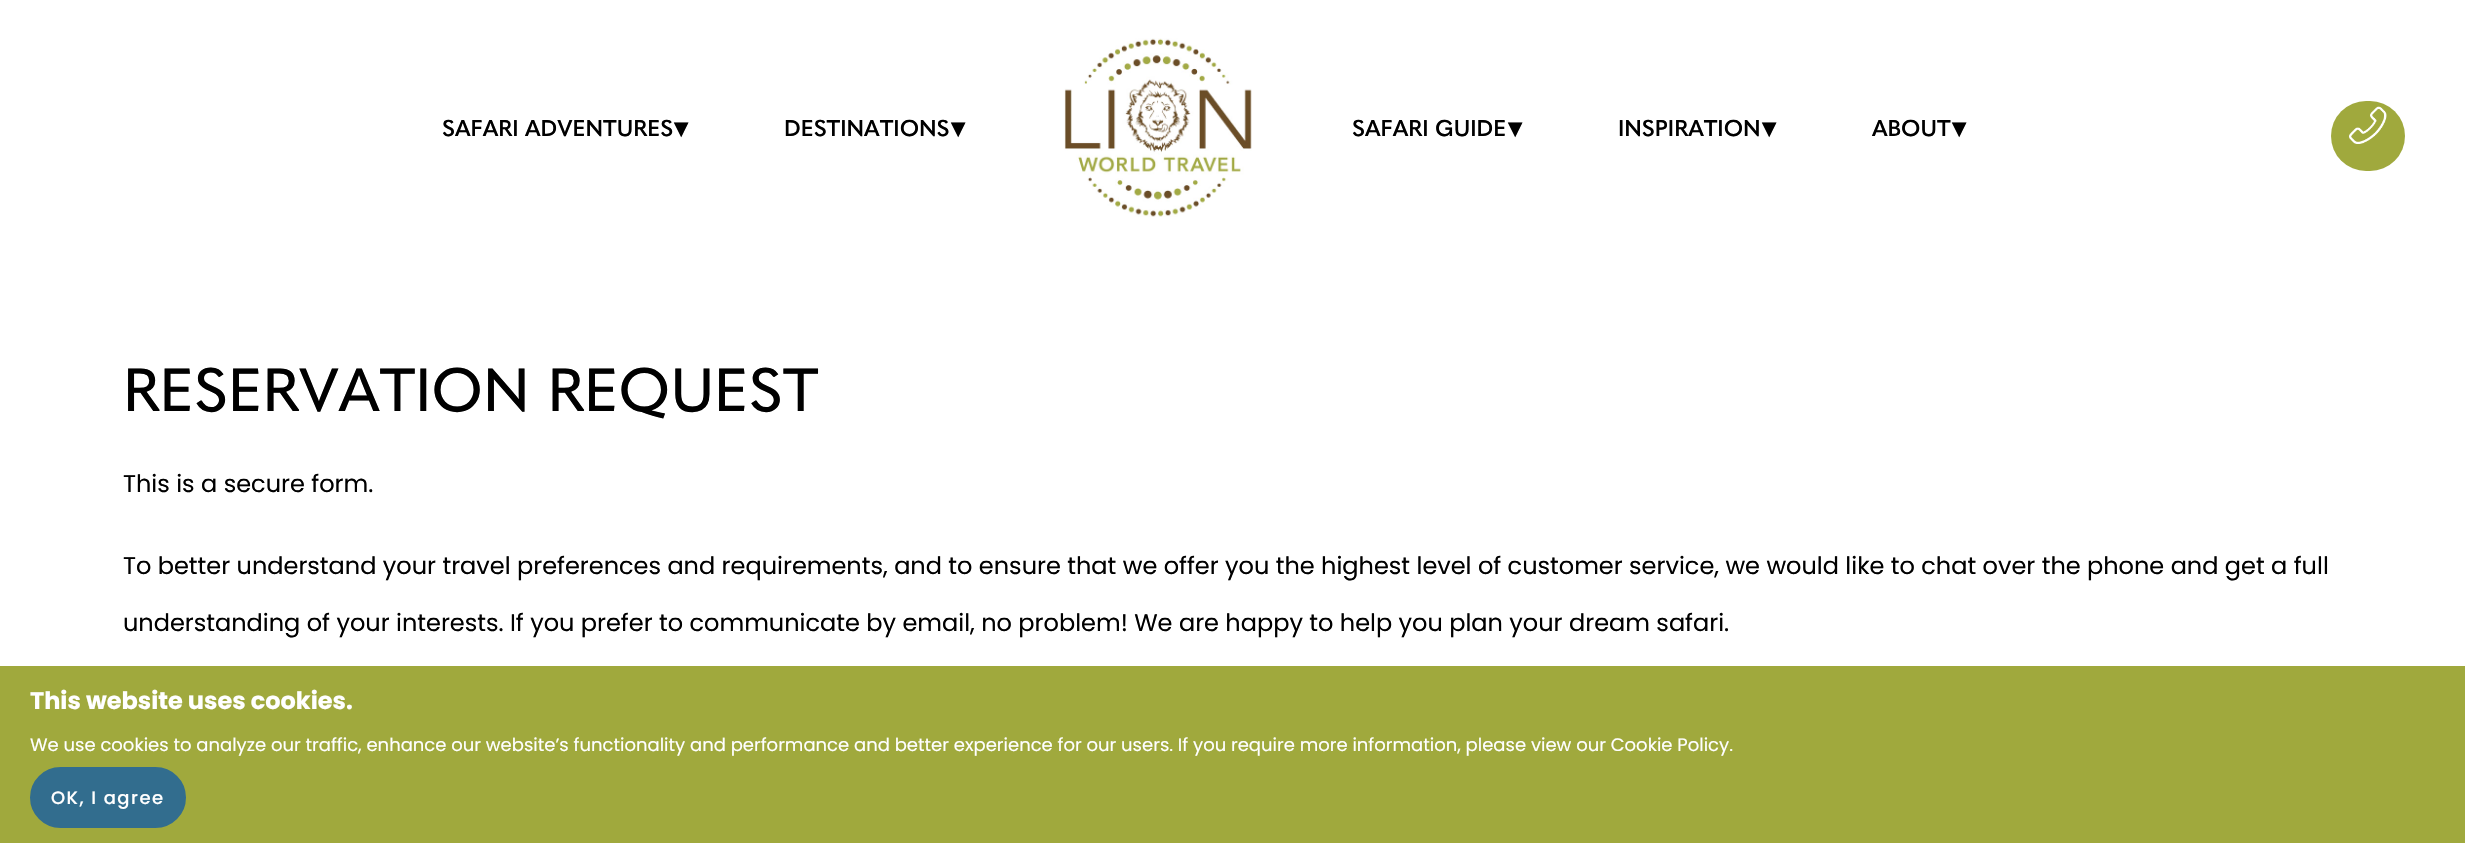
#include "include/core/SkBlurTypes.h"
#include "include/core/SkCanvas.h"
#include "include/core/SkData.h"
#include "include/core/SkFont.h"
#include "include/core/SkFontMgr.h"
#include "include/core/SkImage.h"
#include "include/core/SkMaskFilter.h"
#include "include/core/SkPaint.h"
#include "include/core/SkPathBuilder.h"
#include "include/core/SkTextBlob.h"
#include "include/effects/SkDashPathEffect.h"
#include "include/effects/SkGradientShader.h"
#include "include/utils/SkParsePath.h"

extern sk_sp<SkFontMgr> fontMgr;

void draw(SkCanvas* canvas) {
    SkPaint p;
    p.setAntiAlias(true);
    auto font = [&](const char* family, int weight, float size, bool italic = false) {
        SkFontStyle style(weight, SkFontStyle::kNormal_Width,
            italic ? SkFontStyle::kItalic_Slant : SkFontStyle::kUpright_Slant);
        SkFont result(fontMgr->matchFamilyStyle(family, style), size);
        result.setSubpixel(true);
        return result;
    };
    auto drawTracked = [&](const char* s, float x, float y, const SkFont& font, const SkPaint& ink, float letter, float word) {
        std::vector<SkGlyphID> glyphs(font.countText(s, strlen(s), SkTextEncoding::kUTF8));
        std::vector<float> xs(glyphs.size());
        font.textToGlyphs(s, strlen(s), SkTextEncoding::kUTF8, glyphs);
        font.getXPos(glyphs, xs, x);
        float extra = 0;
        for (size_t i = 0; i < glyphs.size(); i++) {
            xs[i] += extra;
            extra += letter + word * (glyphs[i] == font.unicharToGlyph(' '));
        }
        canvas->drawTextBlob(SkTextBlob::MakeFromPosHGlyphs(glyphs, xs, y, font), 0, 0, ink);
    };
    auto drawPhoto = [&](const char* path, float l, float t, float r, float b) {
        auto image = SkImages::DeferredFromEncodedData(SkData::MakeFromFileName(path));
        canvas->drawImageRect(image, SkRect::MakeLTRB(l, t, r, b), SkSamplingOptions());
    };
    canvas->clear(0xFFFFFFFF);
    auto font1 = font("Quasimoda", 600, 22.5f);
    p.setColor(0xFF000000);
    canvas->drawString("SAFARI ADVENTURES", 442, 136, font1, p);
    auto font2 = font("DejaVu Sans", 700, 27);
    canvas->drawString("▾", 674, 137, font2, p);
    canvas->drawString("DESTINATIONS", 784, 136, font1, p);
    canvas->drawString("▾", 951, 137, font2, p);
    drawPhoto("media/1.png", 1064, 38, 1252, 217);
    canvas->drawString("SAFARI GUIDE", 1352, 136, font1, p);
    canvas->drawString("▾", 1508, 137, font2, p);
    canvas->drawString("INSPIRATION", 1618, 136, font1, p);
    canvas->drawString("▾", 1762, 137, font2, p);
    canvas->drawString("ABOUT", 1872, 136, font1, p);
    canvas->drawString("▾", 1952, 137, font2, p);
    p.setColor(0xFFA0A93D);
    canvas->drawRoundRect(SkRect::MakeLTRB(2331, 101, 2405, 171), 35, 35, p);
    drawPhoto("media/2.png", 2349, 106, 2387, 144);
    auto font3 = font("Quasimoda", 500, 60);
    p.setColor(0xFF000000);
    canvas->drawString("RESERVATION REQUEST", 123, 411, font3, p);
    auto font4 = font("Poppins", 400, 24);
    {
        const struct { const char* s; float x, y; } items[] = {
            {"This is a secure form.", 123, 492},
            {"To better understand your travel preferences and requirements, and to ensure that we offer you the highest level of customer service, we would like to chat over the phone and get a full", 123, 574},
            {"understanding of your interests. If you prefer to communicate by email, no problem! We are happy to help you plan your dream safari.", 123, 631},
        };
        for (auto [s, x, y] : items) {
            canvas->drawString(s, x, y, font4, p);
        }
    }
    p.setColor(0xFFA0A93D);
    canvas->drawRect(SkRect::MakeLTRB(0, 666, 2465, 843), p);
    auto font5 = font("Poppins", 700, 24);
    p.setColor(0xFFFFFFFF);
    canvas->drawString("This website uses cookies.", 30, 709, font5, p);
    auto font6 = font("Poppins", 400, 18);
    canvas->drawString("We use cookies to analyze our traffic, enhance our website’s functionality and performance and better experience for our users. If you require more information, please view our Cookie Policy.", 30, 751, font6, p);
    p.setColor(0xFF326D8E);
    canvas->drawRoundRect(SkRect::MakeLTRB(31.5f, 768.5f, 184.5f, 826.5f), 29, 29, p);
    p.setStyle(SkPaint::kStroke_Style);
    p.setStrokeWidth(3);
    canvas->drawRoundRect(SkRect::MakeLTRB(31.5f, 768.5f, 184.5f, 826.5f), 29, 29, p);
    auto font7 = font("Poppins", 500, 18);
    p.setStyle(SkPaint::kFill_Style);
    p.setColor(0xFFFFFFFF);
    drawTracked("OK, I agree", 51, 804, font7, p, 1.5f, 0);
}
